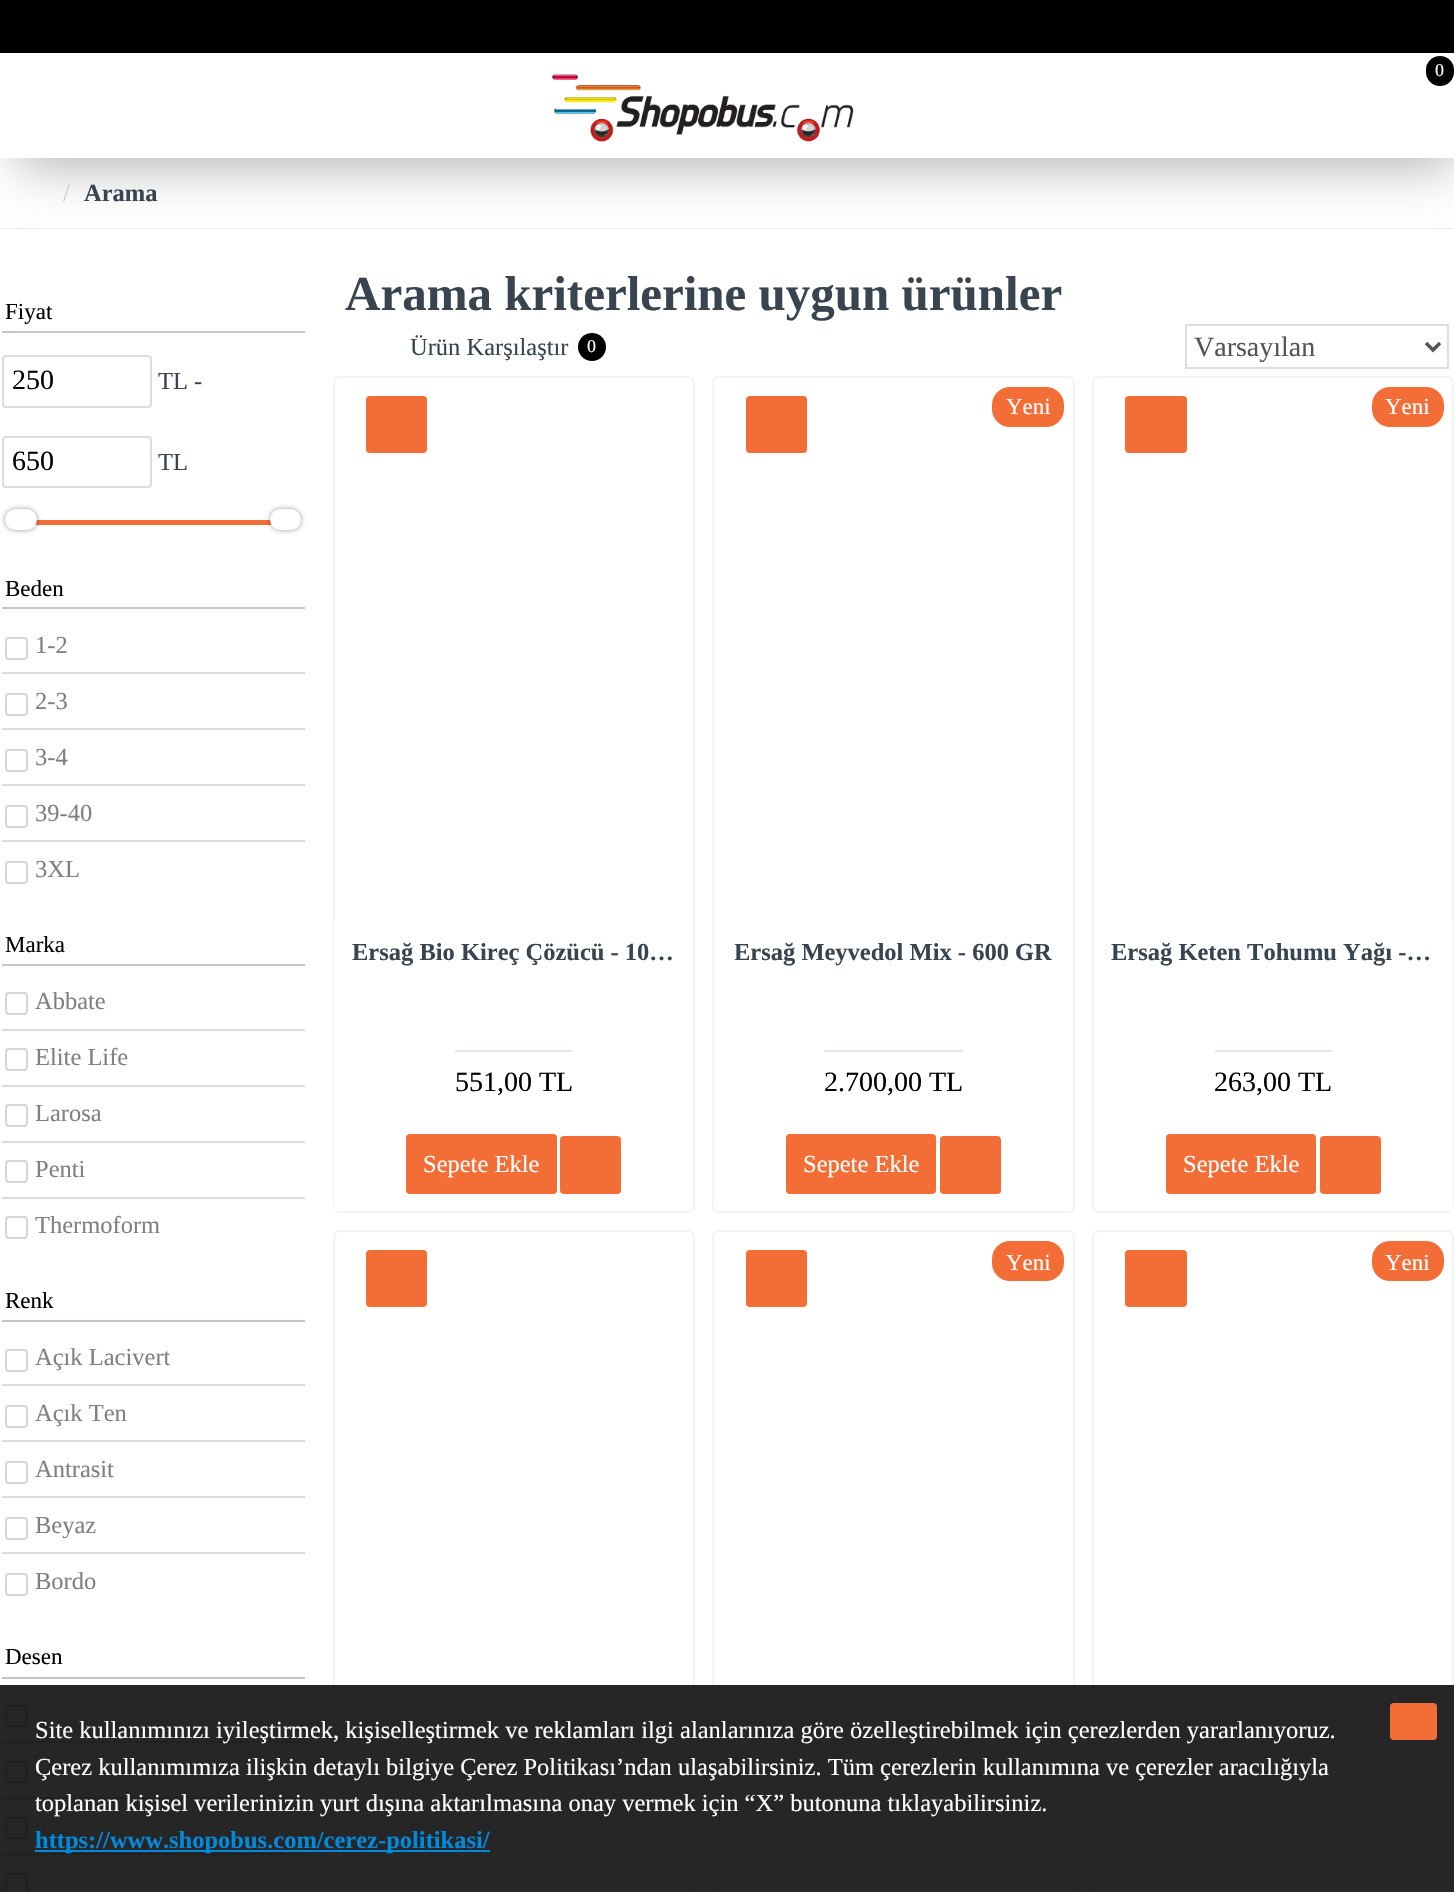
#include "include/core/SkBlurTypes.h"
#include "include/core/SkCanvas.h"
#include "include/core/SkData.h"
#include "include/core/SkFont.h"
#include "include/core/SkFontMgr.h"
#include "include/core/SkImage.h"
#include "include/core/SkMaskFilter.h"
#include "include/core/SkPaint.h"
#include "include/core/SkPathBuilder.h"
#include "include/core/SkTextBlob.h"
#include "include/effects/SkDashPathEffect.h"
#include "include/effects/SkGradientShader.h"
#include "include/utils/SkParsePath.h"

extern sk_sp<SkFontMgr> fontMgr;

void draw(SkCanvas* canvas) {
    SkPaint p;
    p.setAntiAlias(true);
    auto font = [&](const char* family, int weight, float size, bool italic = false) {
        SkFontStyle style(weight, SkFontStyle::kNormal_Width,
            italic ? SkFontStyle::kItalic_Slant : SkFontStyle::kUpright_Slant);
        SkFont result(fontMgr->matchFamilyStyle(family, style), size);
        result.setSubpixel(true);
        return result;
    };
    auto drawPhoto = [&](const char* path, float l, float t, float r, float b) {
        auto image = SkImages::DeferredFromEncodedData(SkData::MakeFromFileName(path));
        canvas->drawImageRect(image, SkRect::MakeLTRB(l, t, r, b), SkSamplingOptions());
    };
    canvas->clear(0xFFFFFFFF);
    p.setColor(0xFFEEEEEE);
    canvas->drawRect(SkRect::MakeLTRB(0, 228, 1454, 229), p);
    p.setColor(0x4D000000);
    p.setMaskFilter(SkMaskFilter::MakeBlur(kNormal_SkBlurStyle, 26));
    canvas->drawRect(SkRect::MakeLTRB(18, 79, 1454, 166), p);
    p.setMaskFilter(nullptr);
    p.setColor(0xFF000000);
    canvas->drawRect(SkRect::MakeLTRB(0, 0, 1454, 53), p);
    p.setColor(0xFFFFFFFF);
    canvas->drawRect(SkRect::MakeLTRB(0, 53, 1454, 158), p);
    p.setColor(0xFF000000);
    canvas->drawRoundRect(SkRect::MakeLTRB(1426, 56, 1454, 86), 14, 14, p);
    auto font1 = font("Liberation Serif", 400, 18);
    p.setColor(0xFFFFFFFF);
    canvas->drawString("0", 1435, 76, font1, p);
    drawPhoto("media/1.png", 552, 74, 854, 142);
    auto font2 = font("Liberation Serif", 400, 24.5f);
    p.setColor(0xFFCCCCCC);
    canvas->drawString("/", 63, 201, font2, p);
    auto font3 = font("Liberation Serif", 700, 24.5f);
    p.setColor(0xFF38444F);
    canvas->drawString("Arama", 84, 201, font3, p);
    p.setColor(0xFFC1C6C6);
    canvas->drawRect(SkRect::MakeLTRB(2, 331, 305, 333), p);
    auto font4 = font("Liberation Serif", 400, 23);
    p.setColor(0xFF000000);
    canvas->drawString("Fiyat", 5, 319, font4, p);
    p.setStyle(SkPaint::kStroke_Style);
    p.setStrokeWidth(2);
    p.setColor(0xFFDDDDDD);
    canvas->drawRoundRect(SkRect::MakeLTRB(3, 356, 151, 407), 3, 3, p);
    auto font5 = font("Liberation Serif", 400, 28);
    p.setStyle(SkPaint::kFill_Style);
    p.setColor(0xFF000000);
    canvas->drawString("250", 12, 389, font5, p);
    p.setColor(0xFF38444F);
    canvas->drawString("TL -", 158, 389, font2, p);
    p.setStyle(SkPaint::kStroke_Style);
    p.setColor(0xFFDDDDDD);
    canvas->drawRoundRect(SkRect::MakeLTRB(3, 437, 151, 487), 3, 3, p);
    p.setStyle(SkPaint::kFill_Style);
    p.setColor(0xFF000000);
    canvas->drawString("650", 12, 470, font5, p);
    p.setColor(0xFF38444F);
    canvas->drawString("TL", 158, 470, font2, p);
    p.setColor(0xFFF36D37);
    canvas->drawRect(SkRect::MakeLTRB(30, 520, 272, 525), p);
    p.setColor(0x66000000);
    p.setMaskFilter(SkMaskFilter::MakeBlur(kNormal_SkBlurStyle, 2.5f));
    canvas->drawRoundRect(SkRect::MakeLTRB(5, 509, 37, 530), 10.5f, 10.5f, p);
    p.setMaskFilter(nullptr);
    p.setColor(0xFFFFFFFF);
    canvas->drawRoundRect(SkRect::MakeLTRB(5, 509, 37, 530), 10.5f, 10.5f, p);
    p.setColor(0x66000000);
    p.setMaskFilter(SkMaskFilter::MakeBlur(kNormal_SkBlurStyle, 2.5f));
    canvas->drawRoundRect(SkRect::MakeLTRB(270, 509, 301, 530), 10.5f, 10.5f, p);
    p.setMaskFilter(nullptr);
    p.setColor(0xFFFFFFFF);
    canvas->drawRoundRect(SkRect::MakeLTRB(270, 509, 301, 530), 10.5f, 10.5f, p);
    p.setColor(0xFFC1C6C6);
    canvas->drawRect(SkRect::MakeLTRB(2, 607, 305, 609), p);
    p.setColor(0xFF000000);
    canvas->drawString("Beden", 5, 596, font4, p);
    p.setStyle(SkPaint::kStroke_Style);
    p.setColor(0xFFD6D6D6);
    canvas->drawRoundRect(SkRect::MakeLTRB(6, 638, 27, 659), 3, 3, p);
    p.setStyle(SkPaint::kFill_Style);
    p.setColor(0xFF808080);
    canvas->drawString("1-2", 35, 653, font2, p);
    p.setColor(0xFFDCDCDC);
    canvas->drawRect(SkRect::MakeLTRB(2, 672, 35, 674), p);
    p.setStyle(SkPaint::kStroke_Style);
    p.setColor(0xFFD6D6D6);
    canvas->drawRoundRect(SkRect::MakeLTRB(6, 694, 27, 715), 3, 3, p);
    p.setStyle(SkPaint::kFill_Style);
    p.setColor(0xFFDCDCDC);
    canvas->drawRect(SkRect::MakeLTRB(35, 672, 305, 674), p);
    p.setColor(0xFF808080);
    canvas->drawString("2-3", 35, 709, font2, p);
    p.setColor(0xFFDCDCDC);
    canvas->drawRect(SkRect::MakeLTRB(2, 728, 35, 730), p);
    p.setStyle(SkPaint::kStroke_Style);
    p.setColor(0xFFD6D6D6);
    canvas->drawRoundRect(SkRect::MakeLTRB(6, 750, 27, 771), 3, 3, p);
    p.setStyle(SkPaint::kFill_Style);
    p.setColor(0xFFDCDCDC);
    canvas->drawRect(SkRect::MakeLTRB(35, 728, 305, 730), p);
    p.setColor(0xFF808080);
    canvas->drawString("3-4", 35, 765, font2, p);
    p.setColor(0xFFDCDCDC);
    canvas->drawRect(SkRect::MakeLTRB(2, 784, 35, 786), p);
    p.setStyle(SkPaint::kStroke_Style);
    p.setColor(0xFFD6D6D6);
    canvas->drawRoundRect(SkRect::MakeLTRB(6, 806, 27, 827), 3, 3, p);
    p.setStyle(SkPaint::kFill_Style);
    p.setColor(0xFFDCDCDC);
    canvas->drawRect(SkRect::MakeLTRB(35, 784, 305, 786), p);
    p.setColor(0xFF808080);
    canvas->drawString("39-40", 35, 821, font2, p);
    p.setColor(0xFFDCDCDC);
    canvas->drawRect(SkRect::MakeLTRB(2, 840, 35, 842), p);
    p.setStyle(SkPaint::kStroke_Style);
    p.setColor(0xFFD6D6D6);
    canvas->drawRoundRect(SkRect::MakeLTRB(6, 862, 27, 883), 3, 3, p);
    p.setStyle(SkPaint::kFill_Style);
    p.setColor(0xFFDCDCDC);
    canvas->drawRect(SkRect::MakeLTRB(35, 840, 305, 842), p);
    p.setColor(0xFF808080);
    canvas->drawString("3XL", 35, 877, font2, p);
    p.setColor(0xFFC1C6C6);
    canvas->drawRect(SkRect::MakeLTRB(2, 964, 305, 966), p);
    p.setColor(0xFF000000);
    canvas->drawString("Marka", 5, 952, font4, p);
    p.setStyle(SkPaint::kStroke_Style);
    p.setColor(0xFFD6D6D6);
    canvas->drawRoundRect(SkRect::MakeLTRB(6, 993, 27, 1014), 3, 3, p);
    p.setStyle(SkPaint::kFill_Style);
    p.setColor(0xFF808080);
    canvas->drawString("Abbate", 35, 1009, font2, p);
    p.setColor(0xFFDCDCDC);
    canvas->drawRect(SkRect::MakeLTRB(2, 1029, 35, 1031), p);
    p.setStyle(SkPaint::kStroke_Style);
    p.setColor(0xFFD6D6D6);
    canvas->drawRoundRect(SkRect::MakeLTRB(6, 1049, 27, 1070), 3, 3, p);
    p.setStyle(SkPaint::kFill_Style);
    p.setColor(0xFFDCDCDC);
    canvas->drawRect(SkRect::MakeLTRB(35, 1029, 305, 1031), p);
    p.setColor(0xFF808080);
    canvas->drawString("Elite Life", 35, 1065, font2, p);
    p.setColor(0xFFDCDCDC);
    canvas->drawRect(SkRect::MakeLTRB(2, 1085, 35, 1087), p);
    p.setStyle(SkPaint::kStroke_Style);
    p.setColor(0xFFD6D6D6);
    canvas->drawRoundRect(SkRect::MakeLTRB(6, 1105, 27, 1126), 3, 3, p);
    p.setStyle(SkPaint::kFill_Style);
    p.setColor(0xFFDCDCDC);
    canvas->drawRect(SkRect::MakeLTRB(35, 1085, 305, 1087), p);
    p.setColor(0xFF808080);
    canvas->drawString("Larosa", 35, 1121, font2, p);
    p.setColor(0xFFDCDCDC);
    canvas->drawRect(SkRect::MakeLTRB(2, 1141, 35, 1143), p);
    p.setStyle(SkPaint::kStroke_Style);
    p.setColor(0xFFD6D6D6);
    canvas->drawRoundRect(SkRect::MakeLTRB(6, 1161, 27, 1182), 3, 3, p);
    p.setStyle(SkPaint::kFill_Style);
    p.setColor(0xFFDCDCDC);
    canvas->drawRect(SkRect::MakeLTRB(35, 1141, 305, 1143), p);
    p.setColor(0xFF808080);
    canvas->drawString("Penti", 35, 1177, font2, p);
    p.setColor(0xFFDCDCDC);
    canvas->drawRect(SkRect::MakeLTRB(2, 1197, 35, 1199), p);
    p.setStyle(SkPaint::kStroke_Style);
    p.setColor(0xFFD6D6D6);
    canvas->drawRoundRect(SkRect::MakeLTRB(6, 1217, 27, 1238), 3, 3, p);
    p.setStyle(SkPaint::kFill_Style);
    p.setColor(0xFFDCDCDC);
    canvas->drawRect(SkRect::MakeLTRB(35, 1197, 305, 1199), p);
    p.setColor(0xFF808080);
    canvas->drawString("Thermoform", 35, 1233, font2, p);
    p.setColor(0xFFC1C6C6);
    canvas->drawRect(SkRect::MakeLTRB(2, 1320, 305, 1322), p);
    p.setColor(0xFF000000);
    canvas->drawString("Renk", 5, 1308, font4, p);
    p.setStyle(SkPaint::kStroke_Style);
    p.setColor(0xFFD6D6D6);
    canvas->drawRoundRect(SkRect::MakeLTRB(6, 1350, 27, 1371), 3, 3, p);
    p.setStyle(SkPaint::kFill_Style);
    p.setColor(0xFF808080);
    canvas->drawString("Açık Lacivert", 35, 1365, font2, p);
    p.setColor(0xFFDCDCDC);
    canvas->drawRect(SkRect::MakeLTRB(2, 1384, 35, 1386), p);
    p.setStyle(SkPaint::kStroke_Style);
    p.setColor(0xFFD6D6D6);
    canvas->drawRoundRect(SkRect::MakeLTRB(6, 1406, 27, 1427), 3, 3, p);
    p.setStyle(SkPaint::kFill_Style);
    p.setColor(0xFFDCDCDC);
    canvas->drawRect(SkRect::MakeLTRB(35, 1384, 305, 1386), p);
    p.setColor(0xFF808080);
    canvas->drawString("Açık Ten", 35, 1421, font2, p);
    p.setColor(0xFFDCDCDC);
    canvas->drawRect(SkRect::MakeLTRB(2, 1440, 35, 1442), p);
    p.setStyle(SkPaint::kStroke_Style);
    p.setColor(0xFFD6D6D6);
    canvas->drawRoundRect(SkRect::MakeLTRB(6, 1462, 27, 1483), 3, 3, p);
    p.setStyle(SkPaint::kFill_Style);
    p.setColor(0xFFDCDCDC);
    canvas->drawRect(SkRect::MakeLTRB(35, 1440, 305, 1442), p);
    p.setColor(0xFF808080);
    canvas->drawString("Antrasit", 35, 1477, font2, p);
    p.setColor(0xFFDCDCDC);
    canvas->drawRect(SkRect::MakeLTRB(2, 1496, 35, 1498), p);
    p.setStyle(SkPaint::kStroke_Style);
    p.setColor(0xFFD6D6D6);
    canvas->drawRoundRect(SkRect::MakeLTRB(6, 1518, 27, 1539), 3, 3, p);
    p.setStyle(SkPaint::kFill_Style);
    p.setColor(0xFFDCDCDC);
    canvas->drawRect(SkRect::MakeLTRB(35, 1496, 305, 1498), p);
    p.setColor(0xFF808080);
    canvas->drawString("Beyaz", 35, 1533, font2, p);
    p.setColor(0xFFDCDCDC);
    canvas->drawRect(SkRect::MakeLTRB(2, 1552, 35, 1554), p);
    p.setStyle(SkPaint::kStroke_Style);
    p.setColor(0xFFD6D6D6);
    canvas->drawRoundRect(SkRect::MakeLTRB(6, 1574, 27, 1595), 3, 3, p);
    p.setStyle(SkPaint::kFill_Style);
    p.setColor(0xFFDCDCDC);
    canvas->drawRect(SkRect::MakeLTRB(35, 1552, 305, 1554), p);
    p.setColor(0xFF808080);
    canvas->drawString("Bordo", 35, 1589, font2, p);
    p.setColor(0xFFC1C6C6);
    canvas->drawRect(SkRect::MakeLTRB(2, 1677, 305, 1679), p);
    p.setColor(0xFF000000);
    canvas->drawString("Desen", 5, 1664, font4, p);
    p.setStyle(SkPaint::kStroke_Style);
    p.setColor(0xFFD6D6D6);
    canvas->drawRoundRect(SkRect::MakeLTRB(6, 1706, 27, 1726), 3, 3, p);
    p.setStyle(SkPaint::kFill_Style);
    p.setColor(0xFFDCDCDC);
    canvas->drawRect(SkRect::MakeLTRB(2, 1741, 35, 1743), p);
    p.setStyle(SkPaint::kStroke_Style);
    p.setColor(0xFFD6D6D6);
    canvas->drawRoundRect(SkRect::MakeLTRB(6, 1762, 27, 1782), 3, 3, p);
    p.setStyle(SkPaint::kFill_Style);
    p.setColor(0xFFDCDCDC);
    canvas->drawRect(SkRect::MakeLTRB(35, 1741, 305, 1743), p);
    canvas->drawRect(SkRect::MakeLTRB(2, 1797, 35, 1799), p);
    p.setStyle(SkPaint::kStroke_Style);
    p.setColor(0xFFD6D6D6);
    canvas->drawRoundRect(SkRect::MakeLTRB(6, 1818, 27, 1838), 3, 3, p);
    p.setStyle(SkPaint::kFill_Style);
    p.setColor(0xFFDCDCDC);
    canvas->drawRect(SkRect::MakeLTRB(35, 1797, 305, 1799), p);
    canvas->drawRect(SkRect::MakeLTRB(2, 1853, 35, 1855), p);
    p.setStyle(SkPaint::kStroke_Style);
    p.setColor(0xFFD6D6D6);
    canvas->drawRoundRect(SkRect::MakeLTRB(6, 1874, 27, 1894), 3, 3, p);
    p.setStyle(SkPaint::kFill_Style);
    p.setColor(0xFFDCDCDC);
    canvas->drawRect(SkRect::MakeLTRB(35, 1853, 305, 1855), p);
    auto font6 = font("Liberation Serif", 700, 49);
    p.setColor(0xFF38444F);
    canvas->drawString("Arama kriterlerine uygun ürünler", 345, 310, font6, p);
    canvas->drawString("Ürün Karşılaştır", 410, 355, font2, p);
    p.setColor(0xFF000000);
    canvas->drawCircle(592, 347, 14, p);
    p.setColor(0xFFFFFFFF);
    canvas->drawString("0", 587, 352, font1, p);
    p.setStyle(SkPaint::kStroke_Style);
    p.setColor(0xFFDDDDDD);
    canvas->drawRect(SkRect::MakeLTRB(1186, 325, 1448, 368), p);
    p.setStrokeWidth(3.5f);
    p.setColor(0xFF555555);
    canvas->drawPath(SkPathBuilder().moveTo(1426, 343).lineTo(1433, 350).lineTo(1440, 343).detach(), p);
    p.setStyle(SkPaint::kFill_Style);
    canvas->drawString("Varsayılan", 1194, 356, font5, p);
    p.setStyle(SkPaint::kStroke_Style);
    p.setStrokeWidth(2);
    p.setColor(0xFFF5F4F4);
    canvas->drawRoundRect(SkRect::MakeLTRB(334, 377, 694, 1212), 6, 6, p);
    p.setStyle(SkPaint::kFill_Style);
    p.setColor(0xFFFFFFFF);
    canvas->drawPath(SkPathBuilder().moveTo(334, 919).lineTo(693, 919).lineTo(693, 1206).cubicTo(693, 1209, 691, 1211, 688, 1211).lineTo(339, 1211).cubicTo(336, 1211, 334, 1209, 334, 1206).close().detach(), p);
    p.setColor(0xFF38444F);
    canvas->drawString("Ersağ Bio Kireç Çözücü - 10…", 352, 960, font3, p);
    p.setColor(0xFFDFE7F7);
    canvas->drawRect(SkRect::MakeLTRB(455, 1050, 572, 1052), p);
    p.setColor(0xFF000000);
    canvas->drawString("551,00 TL", 455, 1091, font5, p);
    p.setColor(0xFFFFFFFF);
    canvas->drawPath(SkPathBuilder().moveTo(334, 1117).lineTo(693, 1117).lineTo(693, 1206).cubicTo(693, 1209, 691, 1211, 688, 1211).lineTo(339, 1211).cubicTo(336, 1211, 334, 1209, 334, 1206).close().detach(), p);
    p.setColor(0xFFF36D37);
    canvas->drawRoundRect(SkRect::MakeLTRB(366, 396, 427, 453), 4, 4, p);
    canvas->drawRoundRect(SkRect::MakeLTRB(560, 1136, 621, 1194), 4, 4, p);
    canvas->drawRoundRect(SkRect::MakeLTRB(406, 1134, 557, 1194), 4, 4, p);
    p.setColor(0xFFFFFFFF);
    canvas->drawString("Sepete Ekle", 423, 1172, font2, p);
    p.setStyle(SkPaint::kStroke_Style);
    p.setColor(0xFFF5F4F4);
    canvas->drawRoundRect(SkRect::MakeLTRB(713, 377, 1074, 1212), 6, 6, p);
    p.setStyle(SkPaint::kFill_Style);
    p.setColor(0xFFF36D37);
    canvas->drawRoundRect(SkRect::MakeLTRB(992, 387, 1064, 427), 18, 18, p);
    p.setColor(0xFFFFFFFF);
    canvas->drawString("Yeni", 1006, 414, font4, p);
    canvas->drawPath(SkPathBuilder().moveTo(714, 919).lineTo(1073, 919).lineTo(1073, 1206).cubicTo(1073, 1209, 1071, 1211, 1068, 1211).lineTo(719, 1211).cubicTo(716, 1211, 714, 1209, 714, 1206).close().detach(), p);
    canvas->save();
    canvas->clipRect(SkRect::MakeLTRB(735, 936, 1052, 1041));
    p.setColor(0xFF38444F);
    canvas->drawString("Ersağ Meyvedol Mix - 600 GR", 734, 960, font3, p);
    canvas->restore();
    p.setColor(0xFFDFE7F7);
    canvas->drawRect(SkRect::MakeLTRB(824, 1050, 963, 1052), p);
    p.setColor(0xFF000000);
    canvas->drawString("2.700,00 TL", 824, 1091, font5, p);
    p.setColor(0xFFF36D37);
    canvas->drawRoundRect(SkRect::MakeLTRB(746, 396, 807, 453), 4, 4, p);
    canvas->drawRoundRect(SkRect::MakeLTRB(940, 1136, 1001, 1194), 4, 4, p);
    canvas->drawRoundRect(SkRect::MakeLTRB(786, 1134, 936, 1194), 4, 4, p);
    p.setColor(0xFFFFFFFF);
    canvas->drawString("Sepete Ekle", 803, 1172, font2, p);
    p.setStyle(SkPaint::kStroke_Style);
    p.setColor(0xFFF5F4F4);
    canvas->drawRoundRect(SkRect::MakeLTRB(1093, 377, 1453, 1212), 6, 6, p);
    p.setStyle(SkPaint::kFill_Style);
    p.setColor(0xFFF36D37);
    canvas->drawRoundRect(SkRect::MakeLTRB(1372, 387, 1444, 427), 18, 18, p);
    p.setColor(0xFFFFFFFF);
    canvas->drawString("Yeni", 1385, 414, font4, p);
    canvas->drawPath(SkPathBuilder().moveTo(1094, 919).lineTo(1453, 919).lineTo(1453, 1206).cubicTo(1453, 1209, 1451, 1211, 1448, 1211).lineTo(1099, 1211).cubicTo(1096, 1211, 1094, 1209, 1094, 1206).close().detach(), p);
    p.setColor(0xFF38444F);
    canvas->drawString("Ersağ Keten Tohumu Yağı -…", 1111, 960, font3, p);
    p.setColor(0xFFDFE7F7);
    canvas->drawRect(SkRect::MakeLTRB(1215, 1050, 1332, 1052), p);
    p.setColor(0xFF000000);
    canvas->drawString("263,00 TL", 1214, 1091, font5, p);
    p.setColor(0xFFFFFFFF);
    canvas->drawPath(SkPathBuilder().moveTo(1094, 1117).lineTo(1453, 1117).lineTo(1453, 1206).cubicTo(1453, 1209, 1451, 1211, 1448, 1211).lineTo(1099, 1211).cubicTo(1096, 1211, 1094, 1209, 1094, 1206).close().detach(), p);
    p.setColor(0xFFF36D37);
    canvas->drawRoundRect(SkRect::MakeLTRB(1125, 396, 1187, 453), 4, 4, p);
    canvas->drawRoundRect(SkRect::MakeLTRB(1320, 1136, 1381, 1194), 4, 4, p);
    canvas->drawRoundRect(SkRect::MakeLTRB(1166, 1134, 1316, 1194), 4, 4, p);
    p.setColor(0xFFFFFFFF);
    canvas->drawString("Sepete Ekle", 1183, 1172, font2, p);
    p.setStyle(SkPaint::kStroke_Style);
    p.setColor(0xFFF5F4F4);
    canvas->drawRoundRect(SkRect::MakeLTRB(334, 1231, 694, 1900), 6, 6, p);
    p.setStyle(SkPaint::kFill_Style);
    p.setColor(0xFFFFFFFF);
    canvas->drawRect(SkRect::MakeLTRB(334, 1775, 335, 1892), p);
    p.setColor(0xFFF36D37);
    canvas->drawRoundRect(SkRect::MakeLTRB(366, 1250, 427, 1307), 4, 4, p);
    p.setStyle(SkPaint::kStroke_Style);
    p.setColor(0xFFF5F4F4);
    canvas->drawRoundRect(SkRect::MakeLTRB(713, 1231, 1074, 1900), 6, 6, p);
    p.setStyle(SkPaint::kFill_Style);
    p.setColor(0xFFF36D37);
    canvas->drawRoundRect(SkRect::MakeLTRB(746, 1250, 807, 1307), 4, 4, p);
    canvas->drawRoundRect(SkRect::MakeLTRB(992, 1241, 1064, 1281), 18, 18, p);
    p.setColor(0xFFFFFFFF);
    canvas->drawString("Yeni", 1006, 1270, font4, p);
    p.setStyle(SkPaint::kStroke_Style);
    p.setColor(0xFFF5F4F4);
    canvas->drawRoundRect(SkRect::MakeLTRB(1093, 1231, 1453, 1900), 6, 6, p);
    p.setStyle(SkPaint::kFill_Style);
    p.setColor(0xFFFFFFFF);
    canvas->drawRect(SkRect::MakeLTRB(1452, 1775, 1453, 1892), p);
    p.setColor(0xFFF36D37);
    canvas->drawRoundRect(SkRect::MakeLTRB(1125, 1250, 1187, 1307), 4, 4, p);
    canvas->drawRoundRect(SkRect::MakeLTRB(1372, 1241, 1444, 1281), 18, 18, p);
    p.setColor(0xFFFFFFFF);
    canvas->drawString("Yeni", 1385, 1270, font4, p);
    p.setColor(0xD9000000);
    canvas->drawRect(SkRect::MakeLTRB(0, 1685, 1454, 1892), p);
    p.setColor(0xFFFFFFFF);
    {
        const struct { const char* s; float x, y; } items[] = {
            {"Site kullanımınızı iyileştirmek, kişiselleştirmek ve reklamları ilgi alanlarınıza göre özelleştirebilmek için çerezlerden yararlanıyoruz.", 35, 1738},
            {"Çerez kullanımımıza ilişkin detaylı bilgiye Çerez Politikası’ndan ulaşabilirsiniz. Tüm çerezlerin kullanımına ve çerezler aracılığıyla", 35, 1775},
            {"toplanan kişisel verilerinizin yurt dışına aktarılmasına onay vermek için “X” butonuna tıklayabilirsiniz.", 35, 1811},
        };
        for (auto [s, x, y] : items) {
            canvas->drawString(s, x, y, font2, p);
        }
    }
    p.setColor(0xFF008ADD);
    canvas->drawRect(SkRect::MakeLTRB(35, 1850, 490, 1852), p);
    canvas->drawString("https://www.shopobus.com/cerez-politikasi/", 35, 1848, font3, p);
    p.setColor(0xFFF36D37);
    canvas->drawRoundRect(SkRect::MakeLTRB(1390, 1703, 1437, 1740), 4, 4, p);
}
